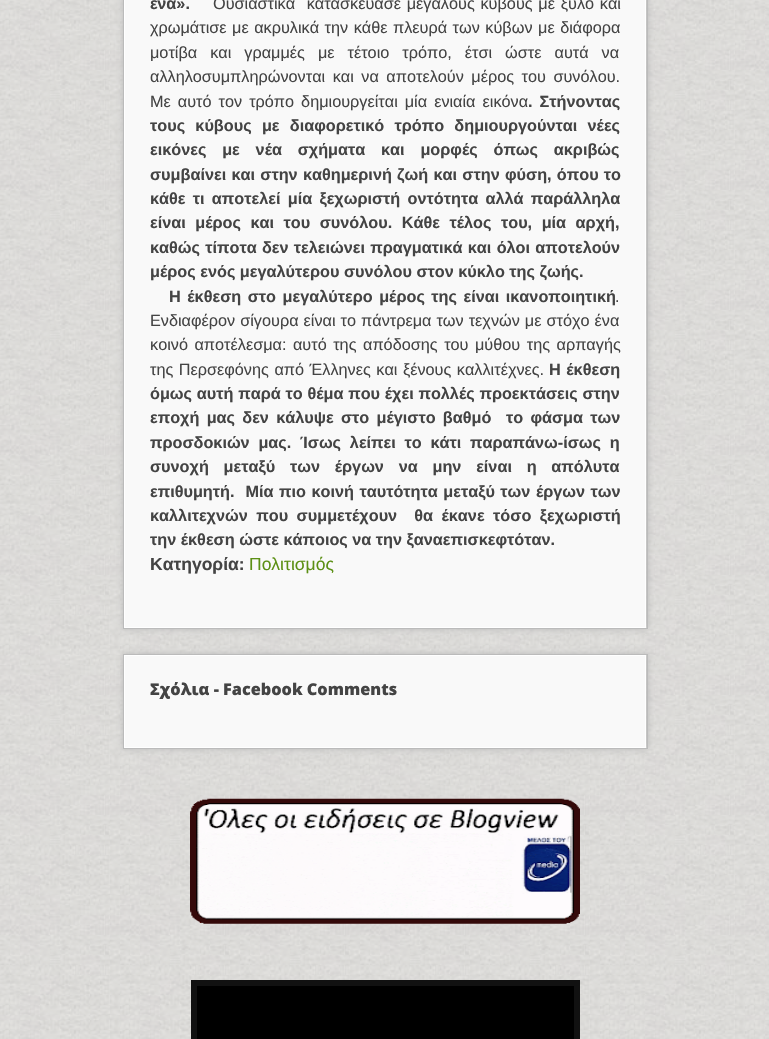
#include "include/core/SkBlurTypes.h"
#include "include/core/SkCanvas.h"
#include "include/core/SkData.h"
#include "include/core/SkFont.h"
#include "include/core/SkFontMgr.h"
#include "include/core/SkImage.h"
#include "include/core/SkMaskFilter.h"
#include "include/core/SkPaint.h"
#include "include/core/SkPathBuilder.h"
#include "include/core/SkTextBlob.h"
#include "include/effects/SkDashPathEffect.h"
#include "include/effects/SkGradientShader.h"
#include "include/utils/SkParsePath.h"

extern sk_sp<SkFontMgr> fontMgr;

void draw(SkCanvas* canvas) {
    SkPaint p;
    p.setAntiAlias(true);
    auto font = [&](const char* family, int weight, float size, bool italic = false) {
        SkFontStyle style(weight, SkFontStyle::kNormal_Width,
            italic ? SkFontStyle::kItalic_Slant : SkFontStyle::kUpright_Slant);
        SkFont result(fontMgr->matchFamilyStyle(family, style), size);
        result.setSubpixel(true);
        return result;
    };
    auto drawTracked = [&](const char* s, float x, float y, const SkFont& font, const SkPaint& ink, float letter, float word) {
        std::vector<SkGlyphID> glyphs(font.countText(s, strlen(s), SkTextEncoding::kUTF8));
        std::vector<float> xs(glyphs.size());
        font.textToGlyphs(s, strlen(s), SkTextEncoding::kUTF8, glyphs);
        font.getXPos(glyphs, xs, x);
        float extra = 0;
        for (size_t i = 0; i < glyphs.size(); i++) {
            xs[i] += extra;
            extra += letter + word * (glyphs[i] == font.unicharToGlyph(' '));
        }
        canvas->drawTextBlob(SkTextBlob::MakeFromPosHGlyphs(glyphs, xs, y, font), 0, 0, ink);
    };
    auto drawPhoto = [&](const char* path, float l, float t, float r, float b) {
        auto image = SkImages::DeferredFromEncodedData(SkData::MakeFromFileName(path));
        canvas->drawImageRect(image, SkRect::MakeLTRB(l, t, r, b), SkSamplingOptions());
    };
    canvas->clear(0xFFFFFFFF);
    drawPhoto("media/1.png", 0, 0, 769, 1039);
    p.setColor(0xFFBBBBBB);
    p.setMaskFilter(SkMaskFilter::MakeBlur(kNormal_SkBlurStyle, 3));
    canvas->drawRect(SkRect::MakeLTRB(123, -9, 648, 629), p);
    p.setMaskFilter(nullptr);
    p.setStyle(SkPaint::kStroke_Style);
    p.setStrokeWidth(1);
    canvas->drawRect(SkRect::MakeLTRB(123.5f, -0.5f, 647.5f, 628.5f), p);
    p.setStyle(SkPaint::kFill_Style);
    p.setColor(0xFFF9F9F9);
    canvas->drawRect(SkRect::MakeLTRB(124.5f, -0.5f, 645.5f, 627.5f), p);
    p.setStyle(SkPaint::kStroke_Style);
    p.setColor(0xFFFFFFFF);
    canvas->drawRect(SkRect::MakeLTRB(124.5f, -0.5f, 645.5f, 627.5f), p);
    auto font1 = font("Liberation Sans", 700, 16.25f);
    p.setStyle(SkPaint::kFill_Style);
    p.setColor(0xFF444444);
    canvas->drawString("ένα».", 150, 9, font1, p);
    auto font2 = font("Liberation Sans", 400, 16.25f);
    drawTracked("Ουσιαστικά  κατασκεύασε μεγάλους κύβους με ξύλο και", 213, 9, font2, p, 0, 1.25f);
    drawTracked("χρωμάτισε με ακρυλικά την κάθε πλευρά των κύβων με διάφορα", 150, 33, font2, p, 0, 1);
    drawTracked("μοτίβα και γραμμές με τέτοιο τρόπο, έτσι ώστε αυτά να", 150, 58, font2, p, 0, 8.5f);
    drawTracked("αλληλοσυμπληρώνονται και να αποτελούν μέρος του συνόλου.", 150, 82, font2, p, 0, 3);
    drawTracked("Με αυτό τον τρόπο δημιουργείται μία ενιαία εικόνα", 150, 107, font2, p, 0, 2.5f);
    drawTracked(". Στήνοντας", 528, 107, font1, p, 0, 2.5f);
    drawTracked("τους κύβους με διαφορετικό τρόπο δημιουργούνται νέες", 150, 131, font1, p, 0, 5.75f);
    drawTracked("εικόνες με νέα σχήματα και μορφές όπως ακριβώς", 150, 155, font1, p, 0, 11.25f);
    drawTracked("συμβαίνει και στην καθημερινή ζωή και στην φύση, όπου το", 150, 180, font1, p, 0, 0.75f);
    drawTracked("κάθε τι αποτελεί μία ξεχωριστή οντότητα αλλά παράλληλα", 150, 204, font1, p, 0, 2.75f);
    drawTracked("είναι μέρος και του συνόλου. Κάθε τέλος του, μία αρχή,", 150, 228, font1, p, 0, 5);
    drawTracked("καθώς τίποτα δεν τελειώνει πραγματικά και όλοι αποτελούν", 150, 253, font1, p, 0, 0.75f);
    canvas->drawString("μέρος ενός μεγαλύτερου συνόλου στον κύκλο της ζωής.", 150, 277, font1, p);
    drawTracked("Η έκθεση στο μεγαλύτερο μέρος της είναι ικανοποιητική", 169, 302, font1, p, 0, 2);
    canvas->drawString(".", 615, 302, font2, p);
    drawTracked("Ενδιαφέρον σίγουρα είναι το πάντρεμα των τεχνών με στόχο ένα", 150, 326, font2, p, 0, 0.5f);
    drawTracked("κοινό αποτέλεσμα: αυτό της απόδοσης του μύθου της αρπαγής", 150, 350, font2, p, 0, 2);
    drawTracked("της Περσεφόνης από Έλληνες και ξένους καλλιτέχνες.", 150, 375, font2, p, 0, 1);
    drawTracked("Η έκθεση", 549, 375, font1, p, 0, 1);
    drawTracked("όμως αυτή παρά το θέμα που έχει πολλές προεκτάσεις στην", 150, 399, font1, p, 0, 0.25f);
    drawTracked("εποχή μας δεν κάλυψε στο μέγιστο βαθμό  το φάσμα των", 150, 423, font1, p, 0, 2.75f);
    drawTracked("προσδοκιών μας. Ίσως λείπει το κάτι παραπάνω-ίσως η", 150, 448, font1, p, 0, 4.25f);
    drawTracked("συνοχή μεταξύ των έργων να μην είναι η απόλυτα", 150, 472, font1, p, 0, 10.25f);
    drawTracked("επιθυμητή.  Μία πιο κοινή ταυτότητα μεταξύ των έργων των", 150, 497, font1, p, 0, 1);
    drawTracked("καλλιτεχνών που συμμετέχουν  θα έκανε τόσο ξεχωριστή", 150, 521, font1, p, 0, 4);
    canvas->drawString("την έκθεση ώστε κάποιος να την ξαναεπισκεφτόταν.", 150, 545, font1, p);
    auto font3 = font("Liberation Sans", 700, 17.5f);
    canvas->drawString("Κατηγορία:", 150, 570, font3, p);
    auto font4 = font("Liberation Sans", 400, 17.5f);
    p.setColor(0xFF5C9015);
    canvas->drawString("Πολιτισμός", 249, 570, font4, p);
    p.setColor(0xFFBBBBBB);
    p.setMaskFilter(SkMaskFilter::MakeBlur(kNormal_SkBlurStyle, 3));
    canvas->drawRect(SkRect::MakeLTRB(123, 654, 648, 749), p);
    p.setMaskFilter(nullptr);
    p.setStyle(SkPaint::kStroke_Style);
    canvas->drawRect(SkRect::MakeLTRB(123.5f, 654.5f, 647.5f, 748.5f), p);
    p.setStyle(SkPaint::kFill_Style);
    p.setColor(0xFFF9F9F9);
    canvas->drawRect(SkRect::MakeLTRB(124.5f, 655.5f, 645.5f, 747.5f), p);
    p.setStyle(SkPaint::kStroke_Style);
    p.setColor(0xFFFFFFFF);
    canvas->drawRect(SkRect::MakeLTRB(124.5f, 655.5f, 645.5f, 747.5f), p);
    auto font5 = font("Open Sans", 800, 16.25f);
    p.setStyle(SkPaint::kFill_Style);
    p.setColor(0xFF444444);
    canvas->drawString("Σχόλια - Facebook Comments", 150, 695, font5, p);
    drawPhoto("media/2.png", 190, 798, 580, 924);
    p.setStyle(SkPaint::kStroke_Style);
    p.setStrokeWidth(6);
    p.setColor(0xFF111111);
    canvas->drawRect(SkRect::MakeLTRB(194, 983, 577, 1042), p);
    p.setStyle(SkPaint::kFill_Style);
    p.setColor(0xFF000000);
    canvas->drawRect(SkRect::MakeLTRB(197, 986, 574, 1039), p);
}
